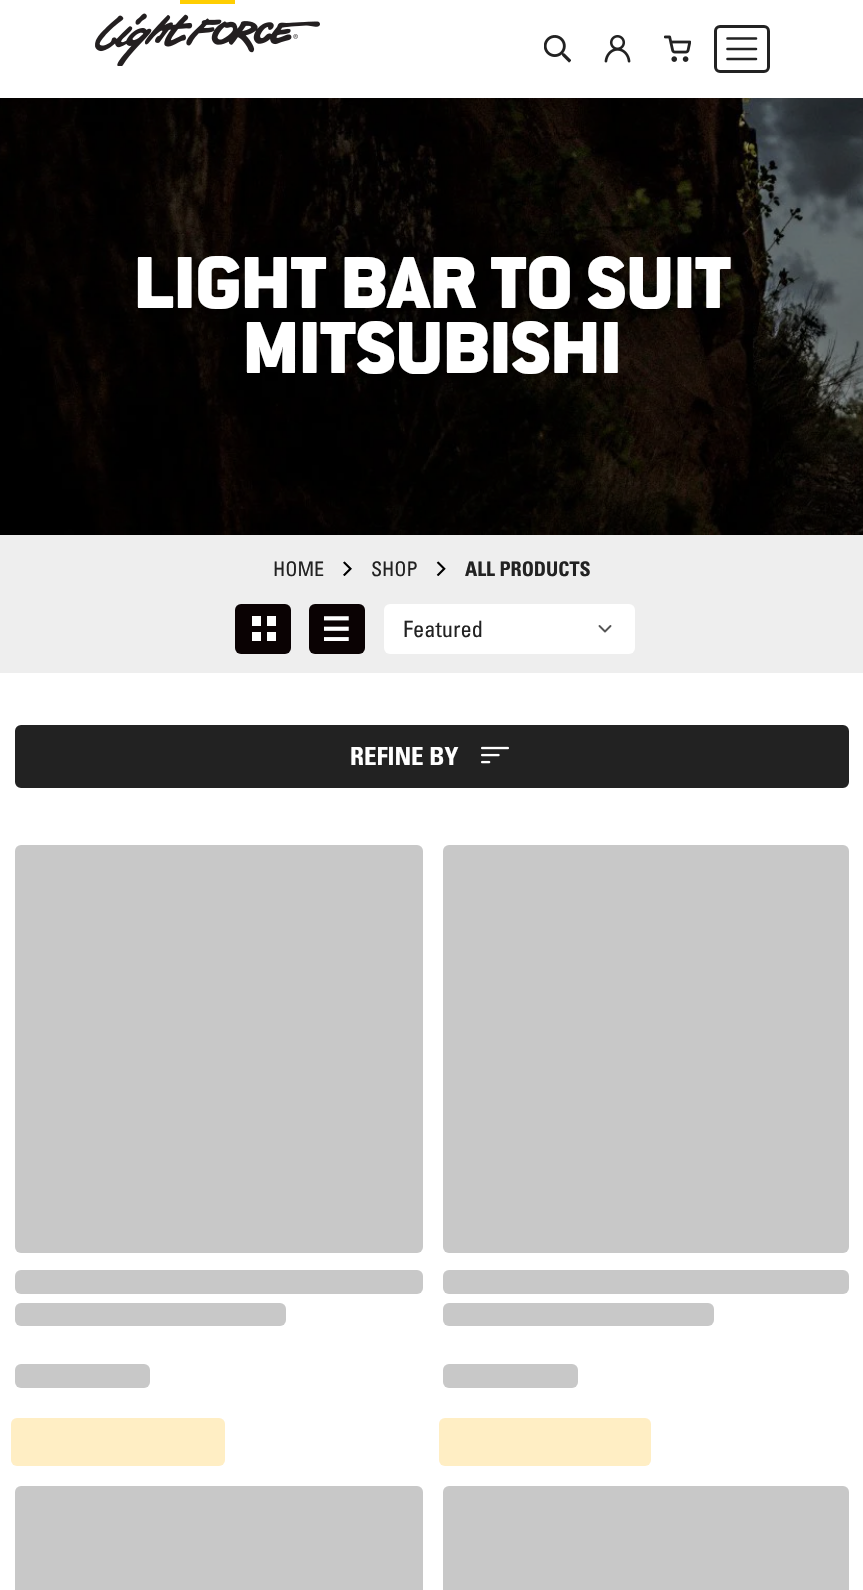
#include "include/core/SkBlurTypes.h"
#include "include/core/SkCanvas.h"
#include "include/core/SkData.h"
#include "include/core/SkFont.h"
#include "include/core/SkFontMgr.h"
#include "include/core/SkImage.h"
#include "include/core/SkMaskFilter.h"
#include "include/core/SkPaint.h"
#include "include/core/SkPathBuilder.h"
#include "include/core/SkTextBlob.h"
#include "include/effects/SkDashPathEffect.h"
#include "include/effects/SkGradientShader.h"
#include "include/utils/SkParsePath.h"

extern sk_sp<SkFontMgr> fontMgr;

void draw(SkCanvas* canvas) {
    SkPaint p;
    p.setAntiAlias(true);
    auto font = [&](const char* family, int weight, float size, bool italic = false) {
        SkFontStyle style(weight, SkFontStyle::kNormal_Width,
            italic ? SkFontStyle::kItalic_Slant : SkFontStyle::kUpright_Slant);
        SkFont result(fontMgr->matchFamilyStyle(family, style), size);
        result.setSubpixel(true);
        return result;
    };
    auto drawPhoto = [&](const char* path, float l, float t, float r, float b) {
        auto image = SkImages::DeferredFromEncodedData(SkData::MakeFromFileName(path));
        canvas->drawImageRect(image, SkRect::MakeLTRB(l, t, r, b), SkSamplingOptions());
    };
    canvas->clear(0xFFFFFFFF);
    drawPhoto("media/1.png", 95, 0, 320, 66);
    drawPhoto("media/2.png", 544, 35, 571, 63);
    drawPhoto("media/3.png", 604, 35, 631, 63);
    drawPhoto("media/4.png", 664, 35, 691, 62);
    p.setStyle(SkPaint::kStroke_Style);
    p.setStrokeWidth(3);
    p.setColor(0xFF222222);
    canvas->drawRoundRect(SkRect::MakeLTRB(715.5f, 26.5f, 768.5f, 71.5f), 4.5f, 4.5f, p);
    p.setStrokeWidth(2.6f);
    p.setStrokeCap(SkPaint::kRound_Cap);
    canvas->drawPath(SkPathBuilder().moveTo(727.5f, 38.5f).lineTo(756, 38.5f).moveTo(727.5f, 49).lineTo(756, 49).moveTo(727.5f, 59).lineTo(756, 59).detach(), p);
    drawPhoto("media/5.png", 0, 98, 863, 535);
    auto font1 = font("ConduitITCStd", 900, 80.75f);
    p.setStyle(SkPaint::kFill_Style);
    p.setColor(0xFFFFFFFF);
    canvas->drawString("LIGHT BAR TO SUIT", 134, 308, font1, p);
    canvas->drawString("MITSUBISHI", 243, 373, font1, p);
    p.setColor(0xFFEEEEEE);
    canvas->drawRect(SkRect::MakeLTRB(0, 535, 863, 673), p);
    auto font2 = font("Univers", 400, 20);
    p.setColor(0xFF222222);
    canvas->drawString("HOME", 273, 576, font2, p);
    drawPhoto("media/6.png", 343, 561, 352, 576);
    canvas->drawString("SHOP", 371, 576, font2, p);
    drawPhoto("media/7.png", 436, 561, 446, 576);
    auto font3 = font("Univers", 700, 20);
    canvas->drawString("ALL PRODUCTS", 465, 576, font3, p);
    p.setColor(0xFF0A0203);
    canvas->drawRoundRect(SkRect::MakeLTRB(235, 604, 291, 654), 6, 6, p);
    {
        const struct { float l, t, r, b; SkColor color; } items[] = {
            {252, 616, 261, 626, 0xFFFFFFFF},
            {267, 616, 276, 626, 0xFFFFFFFF},
            {252, 632, 261, 641, 0xFFFFFFFF},
            {267, 632, 276, 641, 0xFFFFFFFF},
        };
        for (auto [l, t, r, b, color] : items) {
            p.setColor(color);
            canvas->drawRect(SkRect::MakeLTRB(l, t, r, b), p);
        }
    }
    p.setColor(0xFF0A0203);
    canvas->drawRoundRect(SkRect::MakeLTRB(309, 604, 365, 654), 6, 6, p);
    drawPhoto("media/8.png", 324, 616, 349, 641);
    p.setColor(0xFFFFFFFF);
    canvas->drawRoundRect(SkRect::MakeLTRB(384, 604, 635, 654), 6, 6, p);
    p.setStyle(SkPaint::kStroke_Style);
    p.setStrokeWidth(1.9f);
    p.setStrokeJoin(SkPaint::kRound_Join);
    p.setColor(0xFF555555);
    canvas->drawPath(SkPathBuilder().moveTo(599.5f, 626).lineTo(605, 631.5f).lineTo(610.5f, 626).detach(), p);
    auto font4 = font("Univers", 400, 22.5f);
    p.setStyle(SkPaint::kFill_Style);
    p.setColor(0xFF222222);
    canvas->drawString("Featured", 403, 637, font4, p);
    canvas->drawRoundRect(SkRect::MakeLTRB(16.5f, 726.5f, 847.5f, 786.5f), 4.5f, 4.5f, p);
    p.setStyle(SkPaint::kStroke_Style);
    p.setStrokeWidth(3);
    p.setStrokeCap(SkPaint::kButt_Cap);
    p.setStrokeJoin(SkPaint::kMiter_Join);
    canvas->drawRoundRect(SkRect::MakeLTRB(16.5f, 726.5f, 847.5f, 786.5f), 4.5f, 4.5f, p);
    auto font5 = font("Univers", 700, 25);
    p.setStyle(SkPaint::kFill_Style);
    p.setColor(0xFFFFFFFF);
    canvas->drawString("REFINE BY", 350, 765, font5, p);
    drawPhoto("media/9.png", 481, 746, 509, 764);
    p.setColor(0xFFC8C8C8);
    canvas->drawRoundRect(SkRect::MakeLTRB(15, 845, 423, 1253), 6, 6, p);
    canvas->drawRoundRect(SkRect::MakeLTRB(15, 1270, 423, 1294), 6, 6, p);
    canvas->drawRoundRect(SkRect::MakeLTRB(15, 1303, 286, 1326), 6, 6, p);
    canvas->drawRoundRect(SkRect::MakeLTRB(15, 1364, 150, 1388), 6, 6, p);
    p.setColor(0xFFFFEEC4);
    canvas->drawRoundRect(SkRect::MakeLTRB(11, 1418, 225, 1466), 6, 6, p);
    p.setColor(0xFFC8C8C8);
    canvas->drawRoundRect(SkRect::MakeLTRB(443, 845, 849, 1253), 6, 6, p);
    canvas->drawRoundRect(SkRect::MakeLTRB(443, 1270, 849, 1294), 6, 6, p);
    canvas->drawRoundRect(SkRect::MakeLTRB(443, 1303, 714, 1326), 6, 6, p);
    canvas->drawRoundRect(SkRect::MakeLTRB(443, 1364, 578, 1388), 6, 6, p);
    p.setColor(0xFFFFEEC4);
    canvas->drawRoundRect(SkRect::MakeLTRB(439, 1418, 651, 1466), 6, 6, p);
    p.setColor(0xFFC8C8C8);
    canvas->drawRoundRect(SkRect::MakeLTRB(15, 1486, 423, 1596), 6, 6, p);
    canvas->drawRoundRect(SkRect::MakeLTRB(443, 1486, 849, 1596), 6, 6, p);
}
